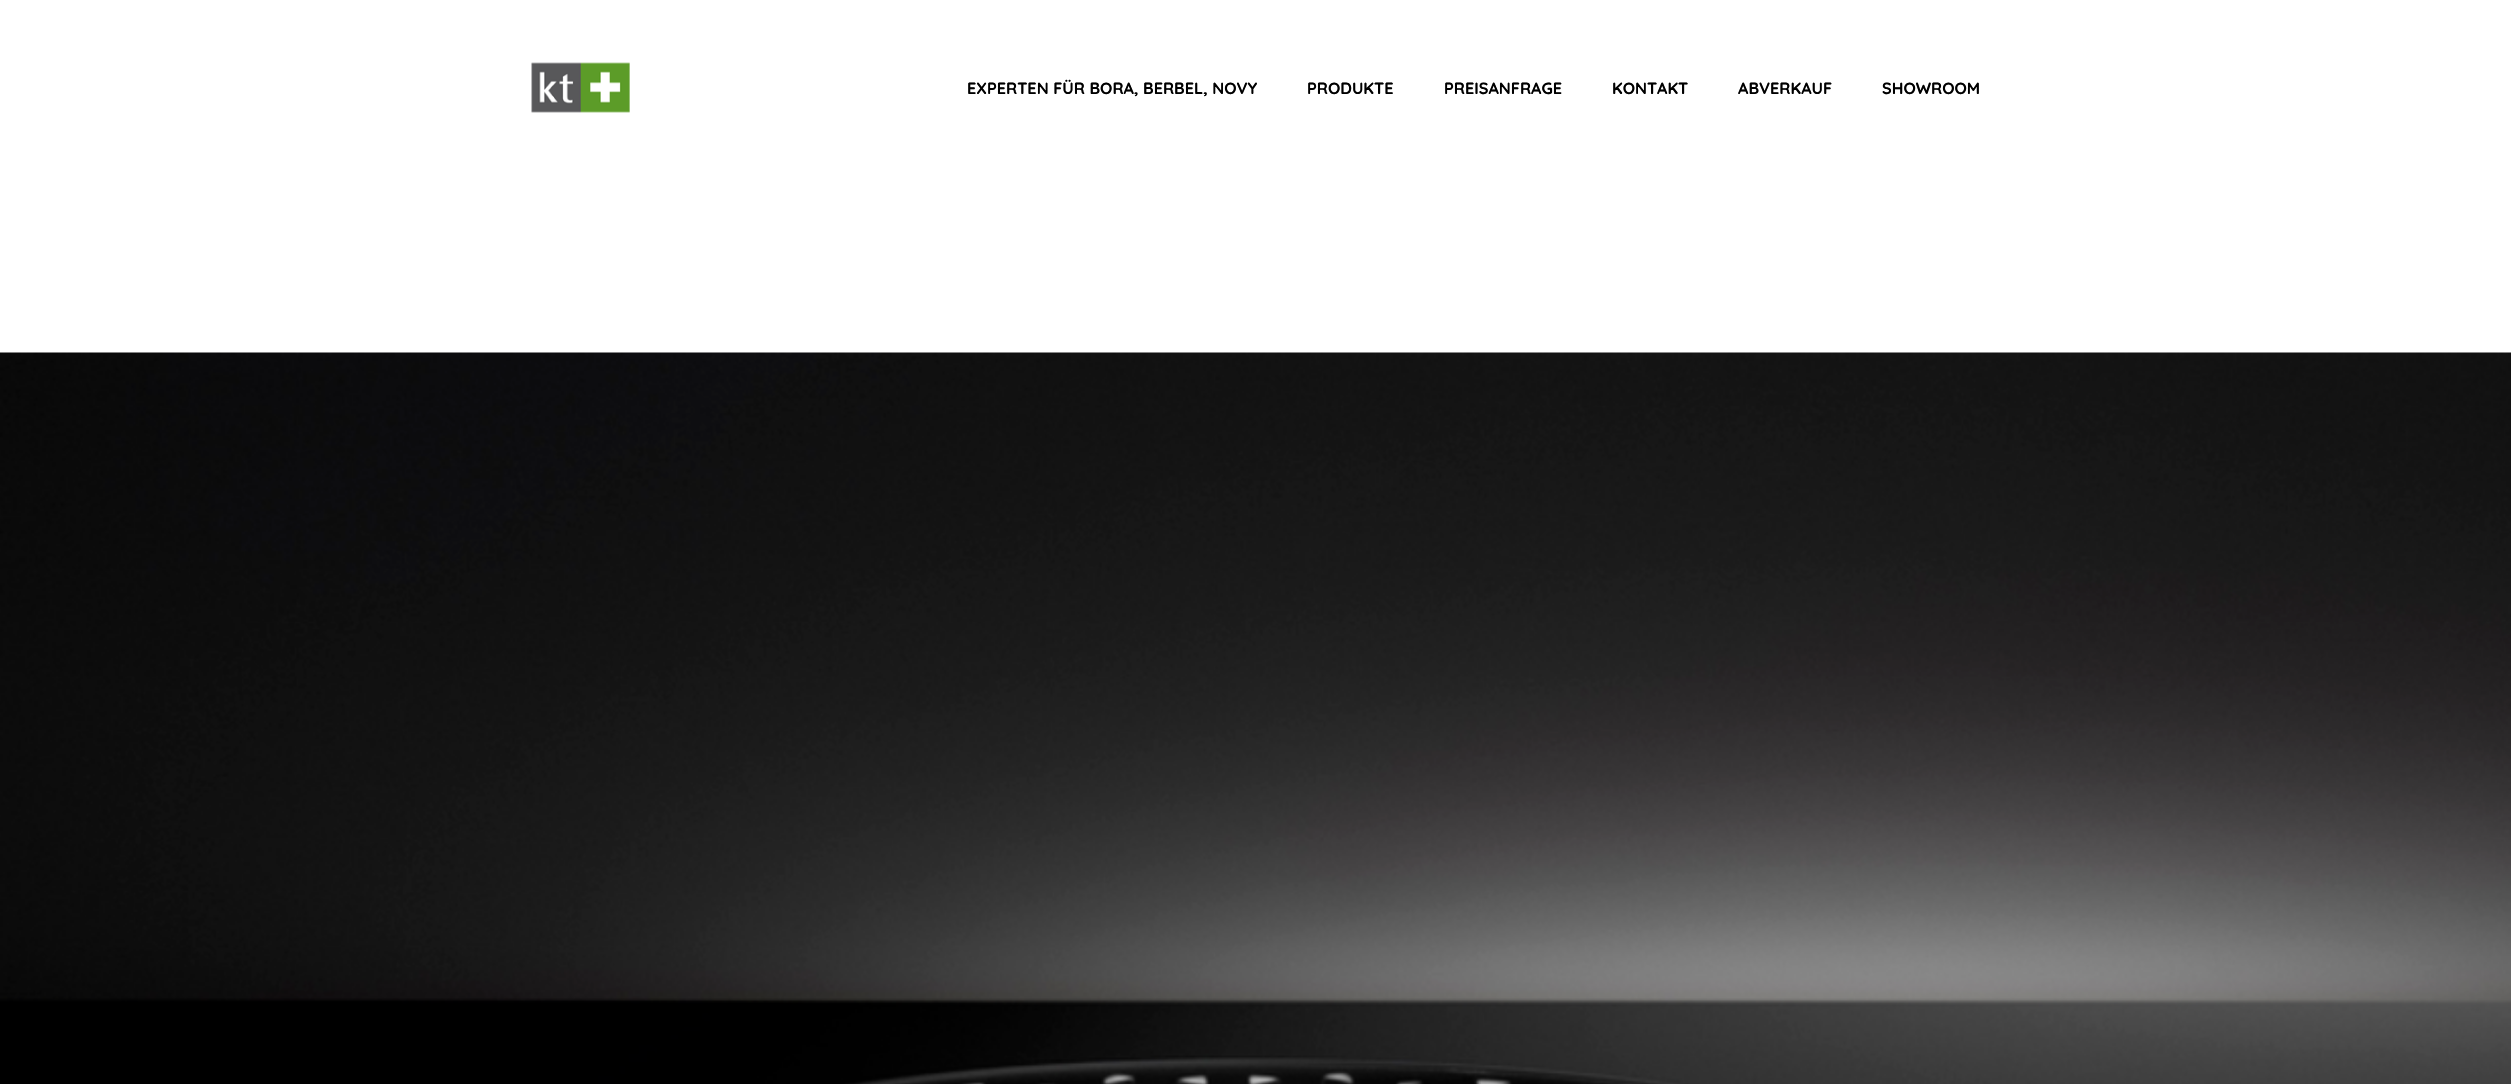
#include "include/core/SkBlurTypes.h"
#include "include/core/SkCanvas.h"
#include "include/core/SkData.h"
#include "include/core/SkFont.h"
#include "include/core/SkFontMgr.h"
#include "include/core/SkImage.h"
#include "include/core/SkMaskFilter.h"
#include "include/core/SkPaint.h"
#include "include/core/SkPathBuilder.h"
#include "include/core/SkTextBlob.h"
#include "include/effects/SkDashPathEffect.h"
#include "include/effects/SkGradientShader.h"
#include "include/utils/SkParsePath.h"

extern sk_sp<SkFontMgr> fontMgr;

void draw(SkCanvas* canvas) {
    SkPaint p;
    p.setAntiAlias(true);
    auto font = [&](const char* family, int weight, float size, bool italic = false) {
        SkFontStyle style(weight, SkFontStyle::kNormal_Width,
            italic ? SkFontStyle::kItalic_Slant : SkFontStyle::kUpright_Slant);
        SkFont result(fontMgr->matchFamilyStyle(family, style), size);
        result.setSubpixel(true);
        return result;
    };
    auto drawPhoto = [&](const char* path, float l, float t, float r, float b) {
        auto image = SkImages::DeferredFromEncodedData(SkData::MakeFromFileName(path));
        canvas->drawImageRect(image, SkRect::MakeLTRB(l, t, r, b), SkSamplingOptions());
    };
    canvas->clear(0xFFFFFFFF);
    drawPhoto("media/1.png", 531, 62, 630, 113);
    auto font1 = font("Quicksand", 300, 16.25f);
    p.setColor(0xFF000000);
    {
        const struct { const char* s; float x, y; } items[] = {
            {"EXPERTEN FÜR BORA, BERBEL, NOVY", 967, 94},
            {"PRODUKTE", 1307, 94},
            {"PREISANFRAGE", 1444, 94},
            {"KONTAKT", 1612, 94},
            {"ABVERKAUF", 1738, 94},
            {"SHOWROOM", 1882, 94},
        };
        for (auto [s, x, y] : items) {
            canvas->drawString(s, x, y, font1, p);
        }
    }
    drawPhoto("media/2.png", 0, 352, 2511, 1084);
}
